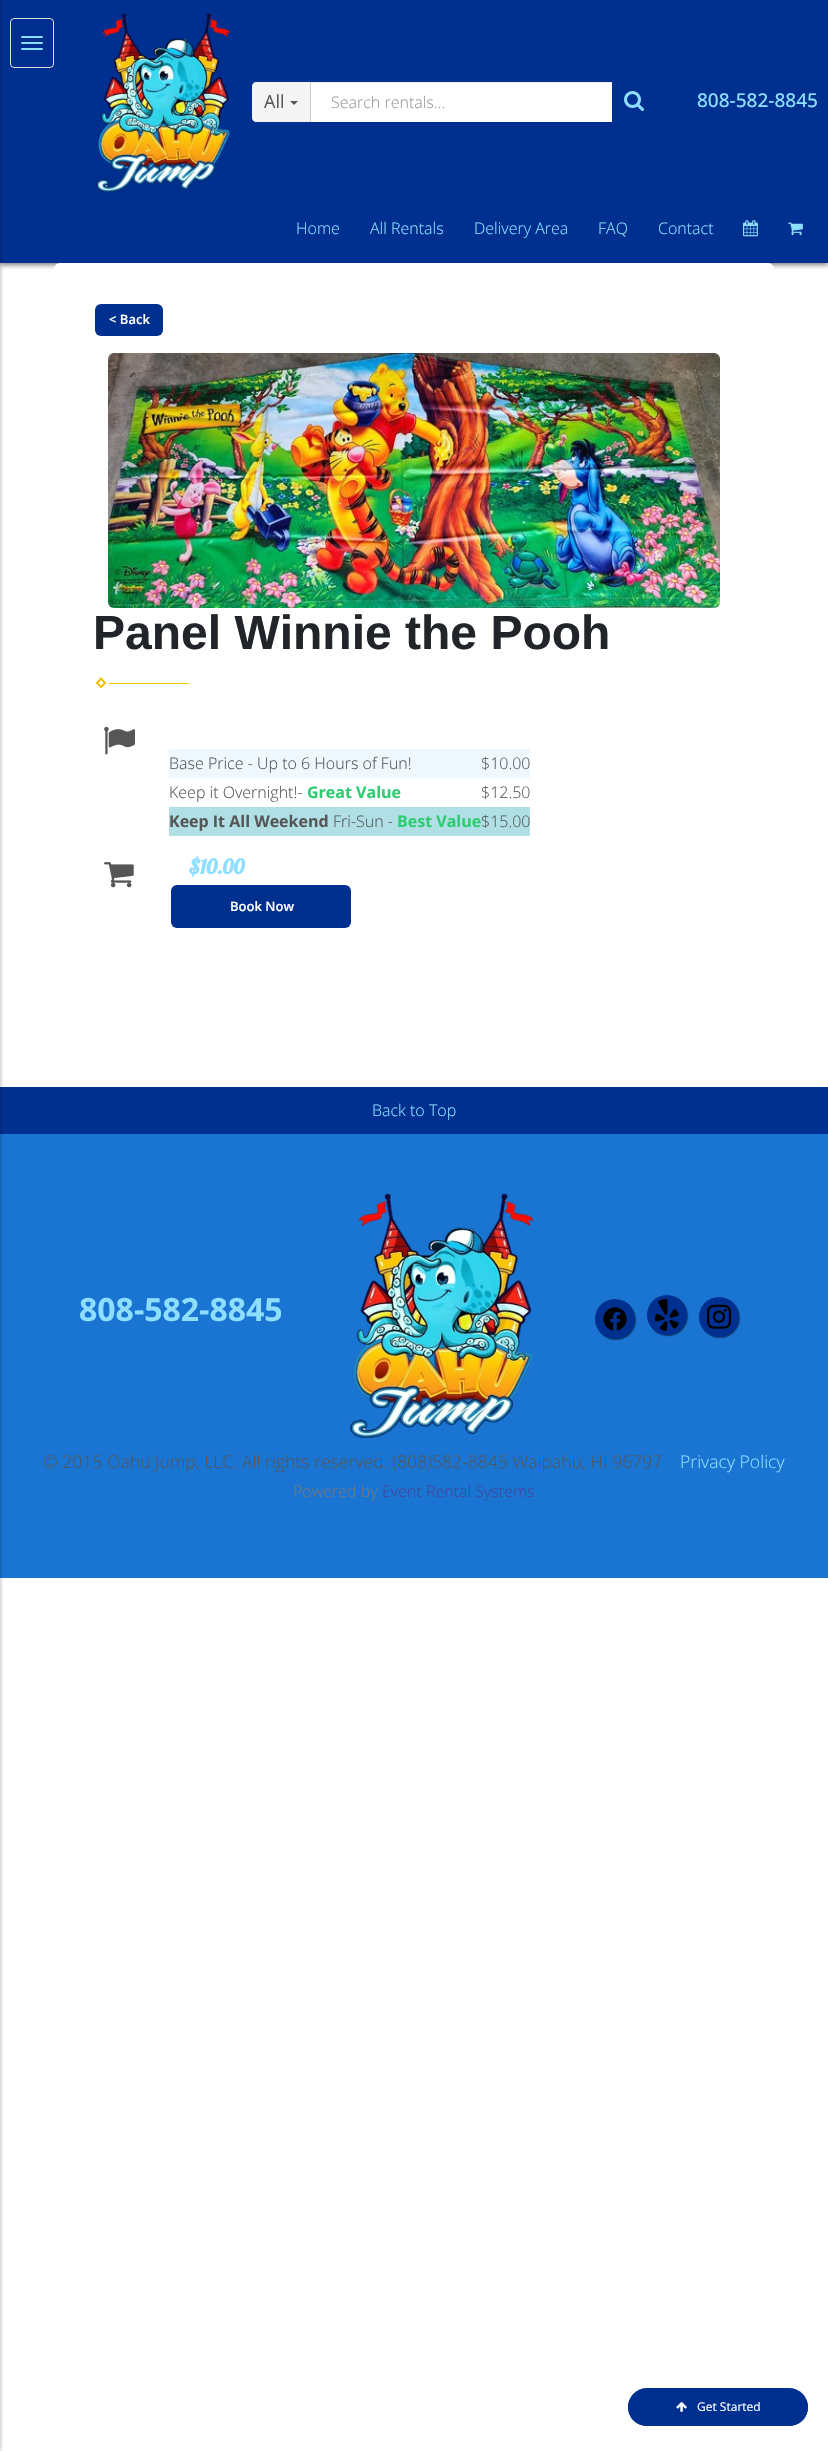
#include "include/core/SkBlurTypes.h"
#include "include/core/SkCanvas.h"
#include "include/core/SkData.h"
#include "include/core/SkFont.h"
#include "include/core/SkFontMgr.h"
#include "include/core/SkImage.h"
#include "include/core/SkMaskFilter.h"
#include "include/core/SkPaint.h"
#include "include/core/SkPathBuilder.h"
#include "include/core/SkTextBlob.h"
#include "include/effects/SkDashPathEffect.h"
#include "include/effects/SkGradientShader.h"
#include "include/utils/SkParsePath.h"

extern sk_sp<SkFontMgr> fontMgr;

void draw(SkCanvas* canvas) {
    SkPaint p;
    p.setAntiAlias(true);
    auto font = [&](const char* family, int weight, float size, bool italic = false) {
        SkFontStyle style(weight, SkFontStyle::kNormal_Width,
            italic ? SkFontStyle::kItalic_Slant : SkFontStyle::kUpright_Slant);
        SkFont result(fontMgr->matchFamilyStyle(family, style), size);
        result.setSubpixel(true);
        return result;
    };
    auto drawPhoto = [&](const char* path, float l, float t, float r, float b) {
        auto image = SkImages::DeferredFromEncodedData(SkData::MakeFromFileName(path));
        canvas->drawImageRect(image, SkRect::MakeLTRB(l, t, r, b), SkSamplingOptions());
    };
    canvas->clear(0xFFFFFFFF);
    p.setColor(0x80000000);
    p.setMaskFilter(SkMaskFilter::MakeBlur(kNormal_SkBlurStyle, 2.5f));
    canvas->drawRect(SkRect::MakeLTRB(0, 2, 828, 265), p);
    p.setMaskFilter(nullptr);
    {
        const struct { float l, t, r, b; SkColor color; } items[] = {
            {0, 0, 828, 263, 0xFF00308F},
            {0, 1087, 828, 1134, 0xFF00308F},
            {0, 1134, 828, 1578, 0xFF1974D2},
        };
        for (auto [l, t, r, b, color] : items) {
            p.setColor(color);
            canvas->drawRect(SkRect::MakeLTRB(l, t, r, b), p);
        }
    }
    p.setColor(0x80000000);
    p.setMaskFilter(SkMaskFilter::MakeBlur(kNormal_SkBlurStyle, 2.5f));
    canvas->drawRect(SkRect::MakeLTRB(-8, 0, -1, 2451), p);
    p.setMaskFilter(nullptr);
    p.setStyle(SkPaint::kStroke_Style);
    p.setStrokeWidth(1);
    p.setColor(0xFFDDDDDD);
    canvas->drawRoundRect(SkRect::MakeLTRB(10.5f, 18.5f, 53.5f, 67.5f), 3.5f, 3.5f, p);
    p.setStyle(SkPaint::kFill_Style);
    p.setColor(0xFF8EDFFF);
    canvas->drawRoundRect(SkRect::MakeLTRB(21, 36, 43, 38), 1, 1, p);
    canvas->drawRoundRect(SkRect::MakeLTRB(21, 42, 43, 44), 1, 1, p);
    canvas->drawRoundRect(SkRect::MakeLTRB(21, 48, 43, 50), 1, 1, p);
    drawPhoto("media/1.png", 96, 13, 231, 193);
    p.setColor(0xFFF4F4F4);
    canvas->drawPath(SkPathBuilder().moveTo(256, 82).lineTo(311, 82).lineTo(311, 122).lineTo(256, 122).cubicTo(254, 122, 252, 120, 252, 118).lineTo(252, 86).cubicTo(252, 84, 254, 82, 256, 82).close().detach(), p);
    p.setColor(0xFFCCCCCC);
    canvas->drawRect(SkRect::MakeLTRB(310, 82, 311, 122), p);
    auto font1 = font("Open Sans", 400, 18);
    p.setColor(0xFF565656);
    canvas->drawString("All", 264, 108, font1, p);
    p.setColor(0xFF555555);
    canvas->drawPath(SkPathBuilder().moveTo(290, 101).lineTo(298, 101).lineTo(294, 105).close().detach(), p);
    p.setColor(0xFFFFFFFF);
    canvas->drawRect(SkRect::MakeLTRB(311, 83, 612, 122), p);
    p.setColor(0xFFECECEC);
    canvas->drawRect(SkRect::MakeLTRB(311, 82, 613, 83), p);
    auto font2 = font("Open Sans", 300, 16);
    p.setColor(0xFF999999);
    canvas->drawString("Search rentals...", 331, 108, font2, p);
    p.setColor(0xFF00308F);
    canvas->drawPath(SkPathBuilder().moveTo(612, 82).lineTo(652, 82).cubicTo(654, 82, 656, 84, 656, 86).lineTo(656, 118).cubicTo(656, 120, 654, 122, 652, 122).lineTo(612, 122).close().detach(), p);
    drawPhoto("media/2.png", 624, 91, 644, 112);
    auto font3 = font("Open Sans", 500, 19);
    p.setColor(0xFF8EDFFF);
    canvas->drawString("808-582-8845", 697, 107, font3, p);
    {
        const struct { const char* s; float x, y; } items[] = {
            {"Home", 296, 234},
            {"All Rentals", 370, 234},
            {"Delivery Area", 474, 234},
            {"FAQ", 598, 234},
            {"Contact", 658, 234},
        };
        for (auto [s, x, y] : items) {
            canvas->drawString(s, x, y, font2, p);
        }
    }
    drawPhoto("media/3.png", 743, 220, 758, 237);
    drawPhoto("media/4.png", 788, 222, 803, 236);
    p.setColor(0xFFFFFFFF);
    canvas->drawRoundRect(SkRect::MakeLTRB(54, 263, 774, 1031), 6, 6, p);
    p.setColor(0xFF00308F);
    canvas->drawRoundRect(SkRect::MakeLTRB(95, 304, 163, 336), 6, 6, p);
    auto font4 = font("Open Sans", 600, 13);
    p.setColor(0xFFFFFFFF);
    canvas->drawString("< Back", 109, 324, font4, p);
    drawPhoto("media/5.png", 108, 353, 720, 608);
    auto font5 = font("Liberation Sans", 700, 48);
    p.setColor(0xFF212529);
    canvas->drawString("Panel Winnie the Pooh", 93, 649, font5, p);
    p.setStyle(SkPaint::kStroke_Style);
    p.setStrokeWidth(2);
    p.setColor(0xFFEEC400);
    canvas->drawPath(SkPathBuilder().moveTo(101, 678.5f).lineTo(105, 683).lineTo(101, 687).lineTo(97, 683).close().detach(), p);
    p.setStyle(SkPaint::kFill_Style);
    canvas->drawRect(SkRect::MakeLTRB(109, 683, 189, 684), p);
    drawPhoto("media/6.png", 104, 726, 135, 755);
    p.setColor(0xFFF0F8FF);
    canvas->drawRect(SkRect::MakeLTRB(169, 749, 530, 778), p);
    p.setColor(0xFF565656);
    {
        const struct { const char* s; float x, y; } items[] = {
            {"Base Price - Up to 6 Hours of Fun!", 169, 769},
            {"$10.00", 481, 769},
            {"Keep it Overnight!-", 169, 798},
        };
        for (auto [s, x, y] : items) {
            canvas->drawString(s, x, y, font2, p);
        }
    }
    auto font6 = font("Open Sans", 700, 16);
    p.setColor(0xFF2ECC71);
    canvas->drawString("Great Value", 307, 798, font6, p);
    p.setColor(0xFF565656);
    canvas->drawString("$12.50", 481, 798, font2, p);
    p.setColor(0xFFB0E0E6);
    canvas->drawRect(SkRect::MakeLTRB(169, 807, 530, 836), p);
    p.setColor(0xFF565656);
    canvas->drawString("Keep It All Weekend", 169, 827, font6, p);
    canvas->drawString("Fri-Sun -", 333, 827, font2, p);
    p.setColor(0xFF2ECC71);
    canvas->drawString("Best Value", 397, 827, font6, p);
    p.setColor(0xFF565656);
    canvas->drawString("$15.00", 481, 827, font2, p);
    drawPhoto("media/7.png", 104, 862, 134, 888);
    auto font7 = font("Lobster", 700, 20);
    p.setColor(0xFF8EDFFF);
    canvas->drawString("$10.00", 189, 874, font7, p);
    p.setColor(0xFF00308F);
    canvas->drawRoundRect(SkRect::MakeLTRB(171, 885, 351, 928), 6, 6, p);
    p.setColor(0xFFFFFFFF);
    canvas->drawString("Book Now", 230, 911, font4, p);
    p.setColor(0xFF8EDFFF);
    canvas->drawString("Back to Top", 372, 1116, font2, p);
    auto font8 = font("Open Sans", 700, 32);
    canvas->drawString("808-582-8845", 79, 1321, font8, p);
    drawPhoto("media/8.png", 350, 1193, 534, 1438);
    p.setColor(0x80000000);
    p.setMaskFilter(SkMaskFilter::MakeBlur(kNormal_SkBlurStyle, 0.5f));
    canvas->drawRoundRect(SkRect::MakeLTRB(596, 1300, 636, 1340), 20, 20, p);
    p.setMaskFilter(nullptr);
    p.setColor(0xFF00308F);
    canvas->drawCircle(615, 1319, 20, p);
    drawPhoto("media/9.png", 603, 1307, 627, 1331);
    p.setColor(0x80000000);
    p.setMaskFilter(SkMaskFilter::MakeBlur(kNormal_SkBlurStyle, 0.5f));
    canvas->drawRoundRect(SkRect::MakeLTRB(648, 1296, 688, 1336), 20, 20, p);
    p.setMaskFilter(nullptr);
    p.setColor(0xFF00308F);
    canvas->drawCircle(667, 1315, 20, p);
    drawPhoto("media/10.png", 655, 1299, 679, 1331);
    p.setColor(0x80000000);
    p.setMaskFilter(SkMaskFilter::MakeBlur(kNormal_SkBlurStyle, 0.5f));
    canvas->drawRoundRect(SkRect::MakeLTRB(700, 1298, 740, 1338), 20, 20, p);
    p.setMaskFilter(nullptr);
    p.setColor(0xFF00308F);
    canvas->drawCircle(719, 1317, 20, p);
    drawPhoto("media/11.png", 707, 1304, 731, 1329);
    auto font9 = font("Open Sans", 300, 17.6f);
    p.setColor(0xFF565656);
    canvas->drawString("© 2015 Oahu Jump, LLC. All rights reserved. (808)582-8845 Waipahu, HI 96797", 43, 1468, font9, p);
    p.setColor(0xFF8EDFFF);
    canvas->drawString("Privacy Policy", 680, 1468, font9, p);
    p.setColor(0xFF777777);
    canvas->drawString("Powered by", 293, 1497, font2, p);
    p.setColor(0xFF444499);
    canvas->drawString("Event Rental Systems", 382, 1497, font2, p);
    p.setColor(0xFF00308F);
    canvas->drawRoundRect(SkRect::MakeLTRB(628, 2389, 808, 2426), 18.5f, 18.5f, p);
    canvas->drawRoundRect(SkRect::MakeLTRB(628, 2388, 808, 2426), 19, 19, p);
    drawPhoto("media/12.png", 676, 2402, 687, 2412);
    auto font10 = font("Open Sans", 400, 12);
    p.setColor(0xFFFFFFFF);
    canvas->drawString("Get Started", 697, 2411, font10, p);
}
